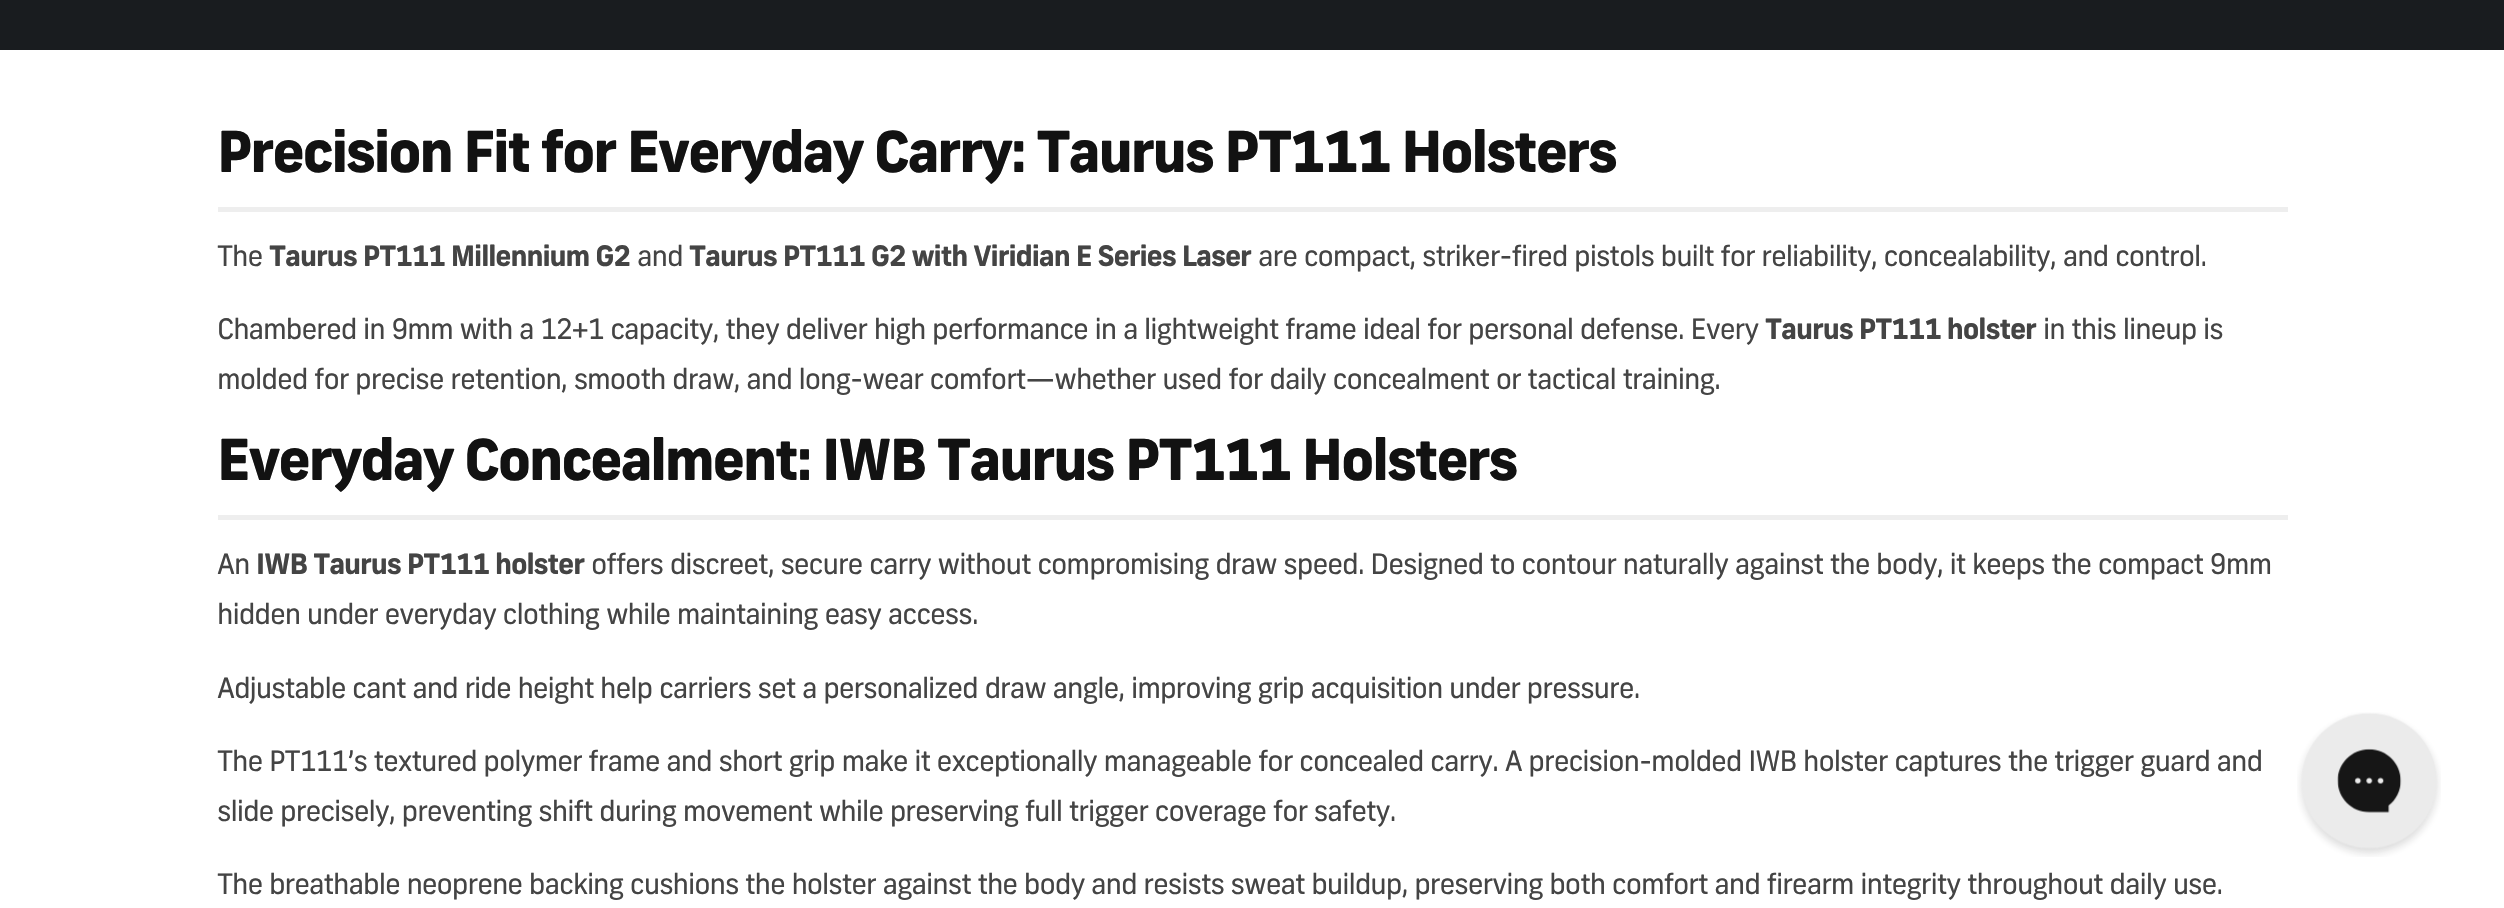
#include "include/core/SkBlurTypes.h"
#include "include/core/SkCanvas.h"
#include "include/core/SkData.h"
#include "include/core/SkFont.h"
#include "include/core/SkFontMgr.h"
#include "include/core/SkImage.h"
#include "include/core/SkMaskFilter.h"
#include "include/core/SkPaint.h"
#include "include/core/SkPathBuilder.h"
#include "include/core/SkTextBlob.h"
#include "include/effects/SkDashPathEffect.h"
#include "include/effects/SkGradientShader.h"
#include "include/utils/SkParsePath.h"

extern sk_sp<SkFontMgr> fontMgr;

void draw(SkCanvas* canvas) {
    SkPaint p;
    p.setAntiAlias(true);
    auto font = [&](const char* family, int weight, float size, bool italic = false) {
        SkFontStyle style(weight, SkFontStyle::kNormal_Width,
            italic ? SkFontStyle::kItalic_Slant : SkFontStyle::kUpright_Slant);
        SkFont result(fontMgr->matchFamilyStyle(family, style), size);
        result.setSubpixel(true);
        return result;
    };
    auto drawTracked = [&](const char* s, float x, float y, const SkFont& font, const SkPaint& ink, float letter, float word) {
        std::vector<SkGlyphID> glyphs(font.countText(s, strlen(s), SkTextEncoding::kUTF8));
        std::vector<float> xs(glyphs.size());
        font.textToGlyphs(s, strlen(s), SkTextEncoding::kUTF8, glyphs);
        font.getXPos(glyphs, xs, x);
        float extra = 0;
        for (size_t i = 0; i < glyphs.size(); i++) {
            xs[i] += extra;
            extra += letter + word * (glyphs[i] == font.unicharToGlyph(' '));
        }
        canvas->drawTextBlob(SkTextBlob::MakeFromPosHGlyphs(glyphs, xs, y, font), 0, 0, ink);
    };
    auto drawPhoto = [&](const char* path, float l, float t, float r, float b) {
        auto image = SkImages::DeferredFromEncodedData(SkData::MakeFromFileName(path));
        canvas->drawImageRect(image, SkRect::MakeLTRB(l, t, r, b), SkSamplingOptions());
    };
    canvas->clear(0xFFFFFFFF);
    p.setColor(0xFF191C1F);
    canvas->drawRect(SkRect::MakeLTRB(0, 0, 2504, 50), p);
    p.setColor(0xFFEEEEEE);
    canvas->drawRect(SkRect::MakeLTRB(218, 207, 2288, 212), p);
    auto font1 = font("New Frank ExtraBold", 800, 56.25f);
    p.setColor(0xFF121212);
    drawTracked("Precision Fit for Everyday Carry: Taurus PT111 Holsters", 217, 172, font1, p, -2.25f, 0);
    auto font2 = font("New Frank", 400, 28.12f);
    p.setColor(0xFF444444);
    drawTracked("The", 217, 266, font2, p, -1.07f, 0);
    auto font3 = font("New Frank", 700, 28.12f);
    drawTracked("Taurus PT111 Millennium G2", 269, 266, font3, p, -1.07f, 0);
    drawTracked("and", 637, 266, font2, p, -1.07f, 0);
    drawTracked("Taurus PT111 G2 with Viridian E Series Laser", 689, 266, font3, p, -1.07f, 0);
    drawTracked("are compact, striker-fired pistols built for reliability, concealability, and control.", 1258, 266, font2, p, -1.07f, 0);
    drawTracked("Chambered in 9mm with a 12+1 capacity, they deliver high performance in a lightweight frame ideal for personal defense. Every", 217, 339, font2, p, -1.07f, 0);
    drawTracked("Taurus PT111 holster", 1765, 339, font3, p, -1.07f, 0);
    drawTracked("in this lineup is", 2043, 339, font2, p, -1.07f, 0);
    drawTracked("molded for precise retention, smooth draw, and long-wear comfort—whether used for daily concealment or tactical training.", 217, 389, font2, p, -1.07f, 0);
    p.setColor(0xFFEEEEEE);
    canvas->drawRect(SkRect::MakeLTRB(218, 515, 2288, 520), p);
    p.setColor(0xFF121212);
    drawTracked("Everyday Concealment: IWB Taurus PT111 Holsters", 217, 480, font1, p, -2.25f, 0);
    p.setColor(0xFF444444);
    drawTracked("An", 217, 574, font2, p, -1.07f, 0);
    drawTracked("IWB Taurus PT111 holster", 256, 574, font3, p, -1.07f, 0);
    {
        const struct { const char* s; float x, y; } items[] = {
            {"offers discreet, secure carry without compromising draw speed. Designed to contour naturally against the body, it keeps the compact 9mm", 591, 574},
            {"hidden under everyday clothing while maintaining easy access.", 217, 624},
            {"Adjustable cant and ride height help carriers set a personalized draw angle, improving grip acquisition under pressure.", 217, 698},
            {"The PT111’s textured polymer frame and short grip make it exceptionally manageable for concealed carry. A precision-molded IWB holster captures the trigger guard and", 217, 771},
            {"slide precisely, preventing shift during movement while preserving full trigger coverage for safety.", 217, 821},
            {"The breathable neoprene backing cushions the holster against the body and resists sweat buildup, preserving both comfort and firearm integrity throughout daily use.", 217, 894},
        };
        for (auto [s, x, y] : items) {
            drawTracked(s, x, y, font2, p, -1.07f, 0);
        }
    }
    drawPhoto("media/1.png", 2297, 712, 2441, 857);
}
